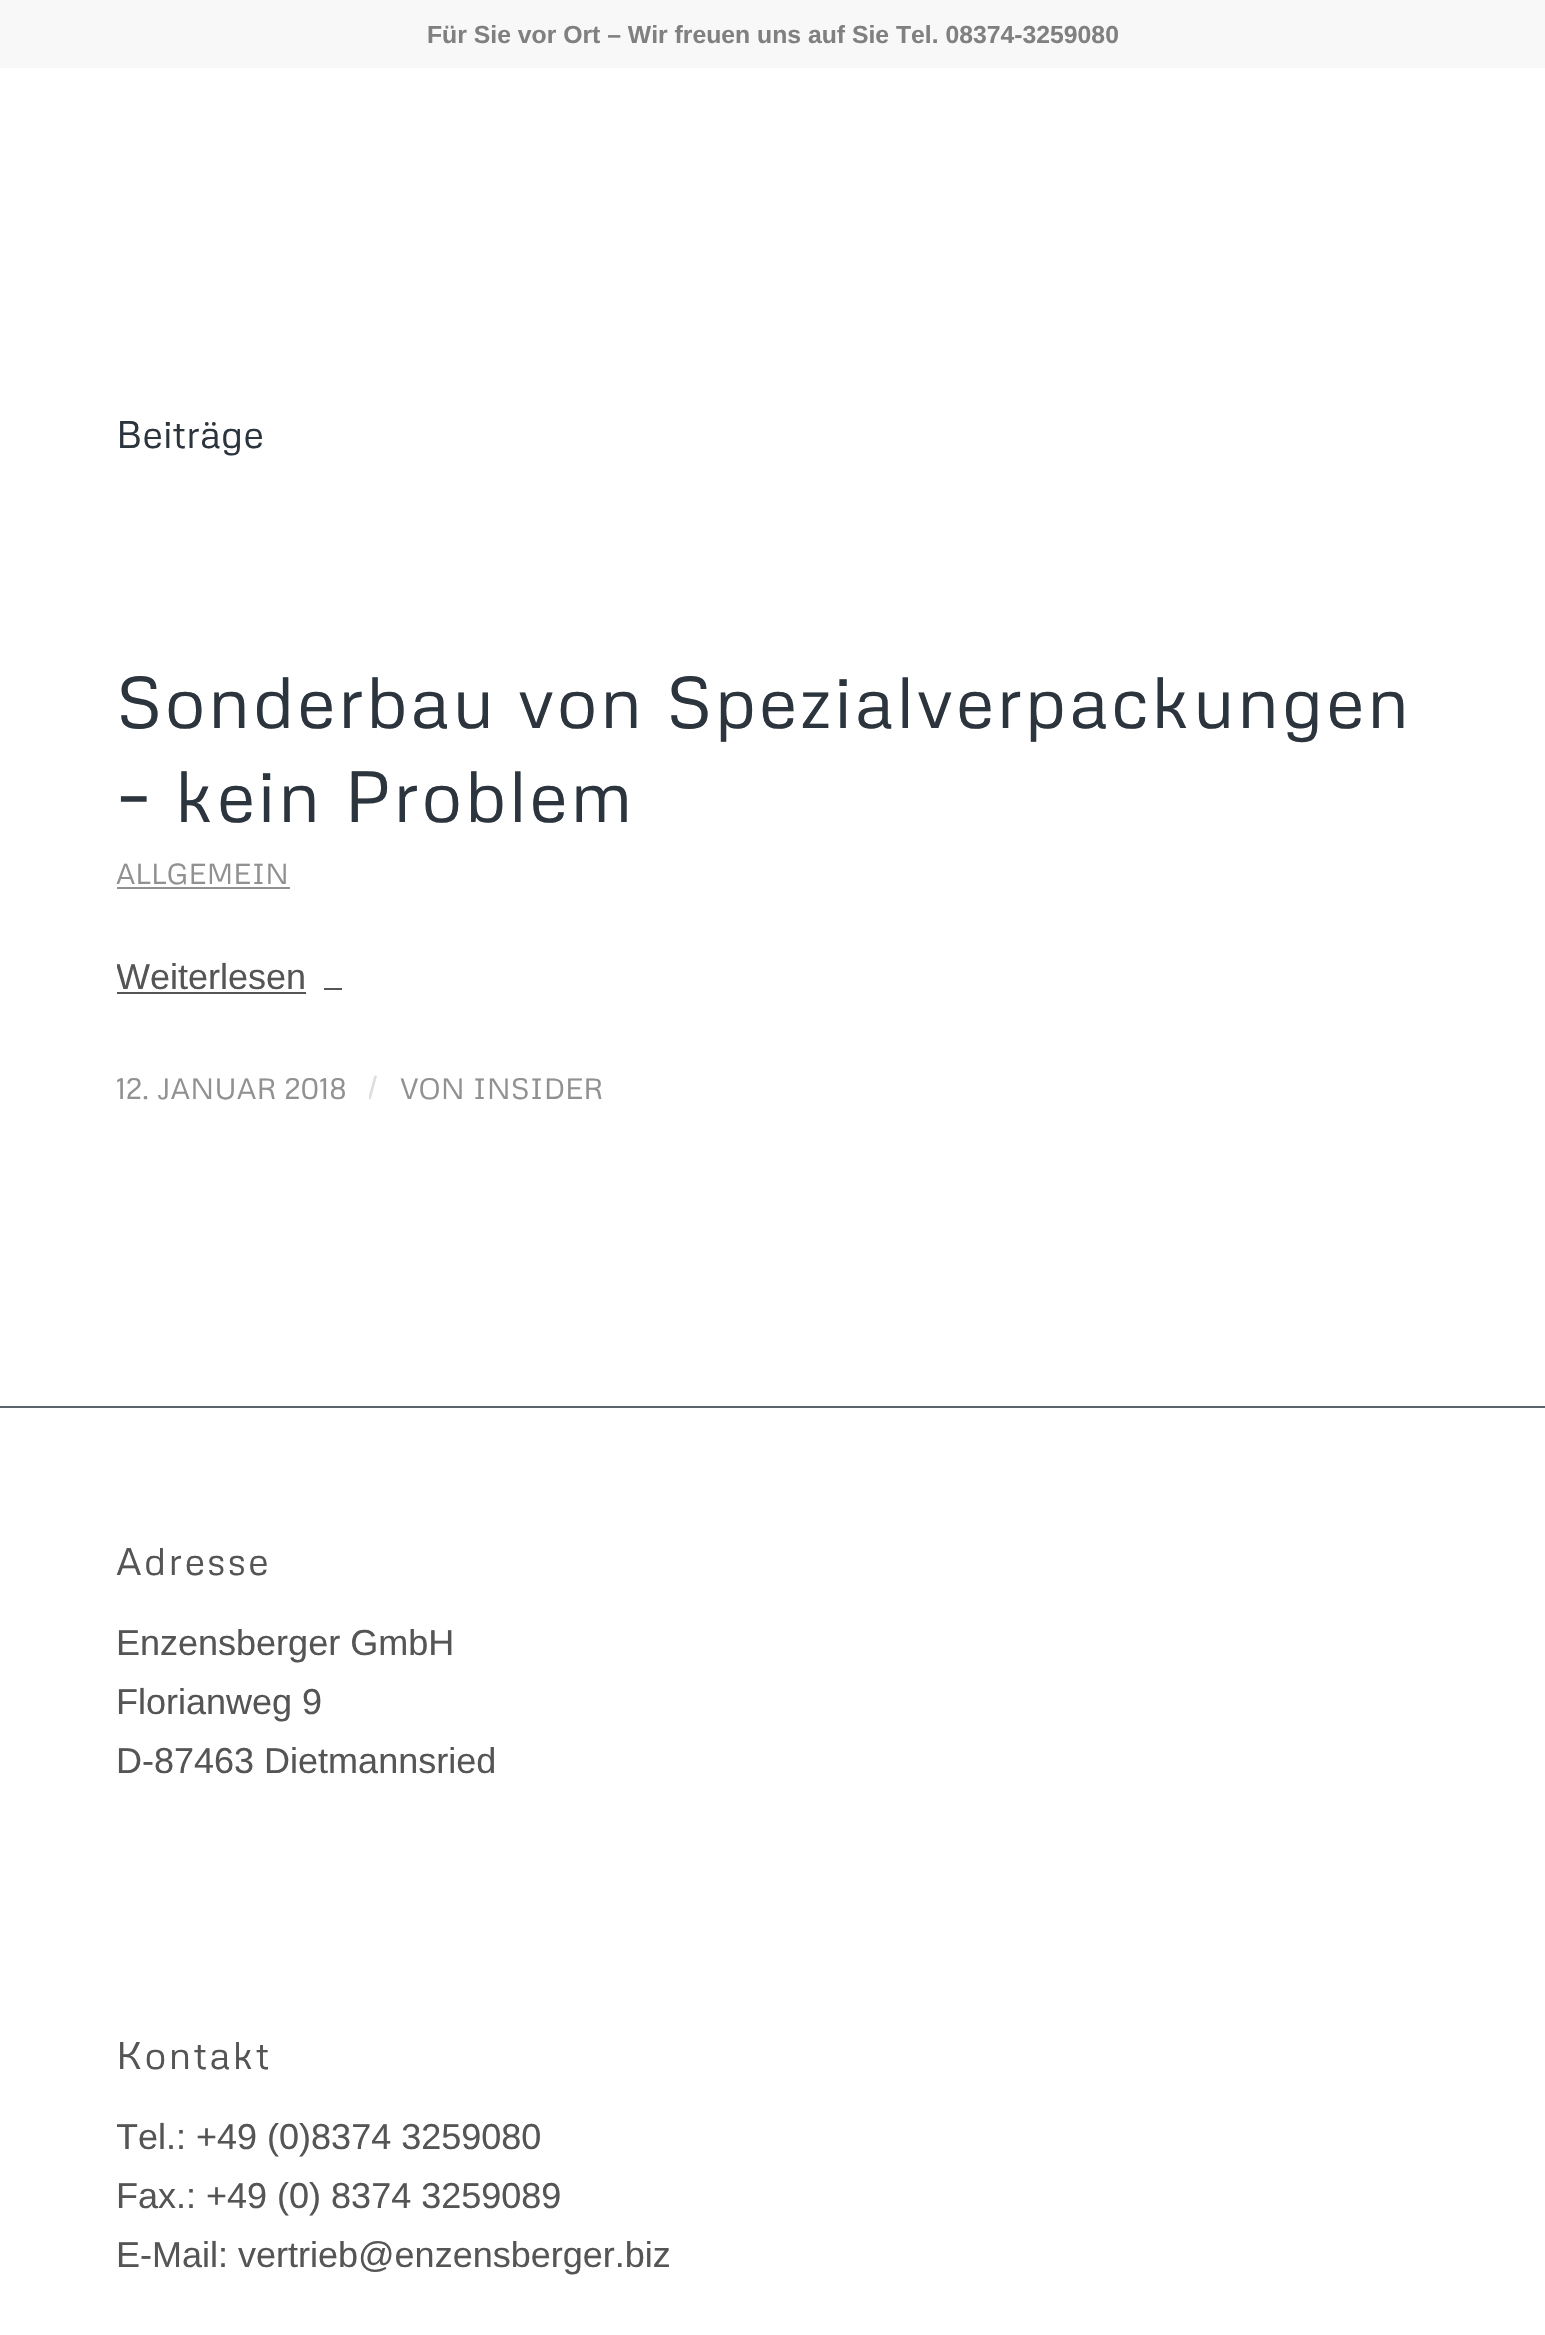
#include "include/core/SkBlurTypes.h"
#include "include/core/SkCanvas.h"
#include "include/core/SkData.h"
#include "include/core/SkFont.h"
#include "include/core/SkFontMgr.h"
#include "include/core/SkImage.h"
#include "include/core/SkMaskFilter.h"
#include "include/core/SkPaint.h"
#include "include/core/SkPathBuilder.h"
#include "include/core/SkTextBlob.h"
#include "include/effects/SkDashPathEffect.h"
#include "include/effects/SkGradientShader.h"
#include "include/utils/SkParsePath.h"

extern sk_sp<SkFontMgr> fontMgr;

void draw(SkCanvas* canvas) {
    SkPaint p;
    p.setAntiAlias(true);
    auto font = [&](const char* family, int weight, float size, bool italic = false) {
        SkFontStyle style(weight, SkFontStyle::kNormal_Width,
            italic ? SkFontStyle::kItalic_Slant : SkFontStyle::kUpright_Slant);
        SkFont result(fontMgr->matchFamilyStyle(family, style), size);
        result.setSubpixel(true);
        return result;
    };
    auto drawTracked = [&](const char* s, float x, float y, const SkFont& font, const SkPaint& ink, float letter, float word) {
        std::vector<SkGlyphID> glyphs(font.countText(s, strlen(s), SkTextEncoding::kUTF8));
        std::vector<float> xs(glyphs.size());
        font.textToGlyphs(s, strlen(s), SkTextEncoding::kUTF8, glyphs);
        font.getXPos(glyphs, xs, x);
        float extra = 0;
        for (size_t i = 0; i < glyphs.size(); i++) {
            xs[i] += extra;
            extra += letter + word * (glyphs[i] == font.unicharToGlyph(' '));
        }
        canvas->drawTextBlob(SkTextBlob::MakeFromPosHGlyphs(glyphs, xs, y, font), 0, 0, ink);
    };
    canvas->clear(0xFFFFFFFF);
    p.setColor(0xFFF8F8F8);
    canvas->drawRect(SkRect::MakeLTRB(0, 0, 1545, 68), p);
    auto font1 = font("Liberation Sans", 700, 24.75f);
    p.setColor(0xFF808080);
    canvas->drawString("Für Sie vor Ort – Wir freuen uns auf Sie Tel. 08374-3259080", 427, 43, font1, p);
    auto font2 = font("Metrophobic", 400, 38.25f);
    p.setColor(0xFF2C353D);
    canvas->drawString("Beiträge", 116, 448, font2, p);
    auto font3 = font("Metrophobic", 400, 72);
    drawTracked("Sonderbau von Spezialverpackungen", 116, 728, font3, p, 2.25f, 0);
    drawTracked("– kein Problem", 116, 822, font3, p, 2.25f, 0);
    auto font4 = font("Metrophobic", 400, 28.75f);
    p.setColor(0xFF919191);
    canvas->drawString("ALLGEMEIN", 116, 884, font4, p);
    canvas->drawRect(SkRect::MakeLTRB(117, 887, 290, 889), p);
    canvas->save();
    canvas->clipRect(SkRect::MakeLTRB(117, 655, 1429, 1249));
    auto font5 = font("Liberation Sans", 400, 36);
    p.setColor(0xFF555555);
    canvas->drawString("Weiterlesen", 116, 989, font5, p);
    canvas->restore();
    canvas->drawRect(SkRect::MakeLTRB(117, 992, 306, 994), p);
    canvas->drawRect(SkRect::MakeLTRB(324, 988, 342, 990), p);
    auto font6 = font("Metrophobic", 400, 29.25f);
    p.setColor(0xFF919191);
    canvas->drawString("12. JANUAR 2018", 116, 1099, font6, p);
    canvas->save();
    canvas->clipRect(SkRect::MakeLTRB(369, 1058, 378, 1118));
    auto font7 = font("Liberation Sans", 400, 32);
    p.setColor(0xFFDEDEDE);
    canvas->drawString("/", 368, 1099, font7, p);
    canvas->restore();
    p.setColor(0xFF919191);
    canvas->drawString("VON INSIDER", 400, 1099, font6, p);
    p.setColor(0xFF5B646B);
    canvas->drawRect(SkRect::MakeLTRB(0, 1406, 1545, 1408), p);
    p.setColor(0xFF555555);
    drawTracked("Adresse", 116, 1575, font2, p, 2.25f, 0);
    {
        const struct { const char* s; float x, y; } items[] = {
            {"Enzensberger GmbH", 116, 1655},
            {"Florianweg 9", 116, 1714},
            {"D-87463 Dietmannsried", 116, 1773},
        };
        for (auto [s, x, y] : items) {
            canvas->drawString(s, x, y, font5, p);
        }
    }
    drawTracked("Kontakt", 116, 2069, font2, p, 2.25f, 0);
    canvas->save();
    canvas->clipRect(SkRect::MakeLTRB(117, 2003, 1429, 2318));
    canvas->drawString("Tel.: +49 (0)8374 3259080", 116, 2149, font5, p);
    canvas->restore();
    canvas->drawString("Fax.: +49 (0) 8374 3259089", 116, 2208, font5, p);
    canvas->drawString("E-Mail: vertrieb@enzensberger.biz", 116, 2267, font5, p);
}
